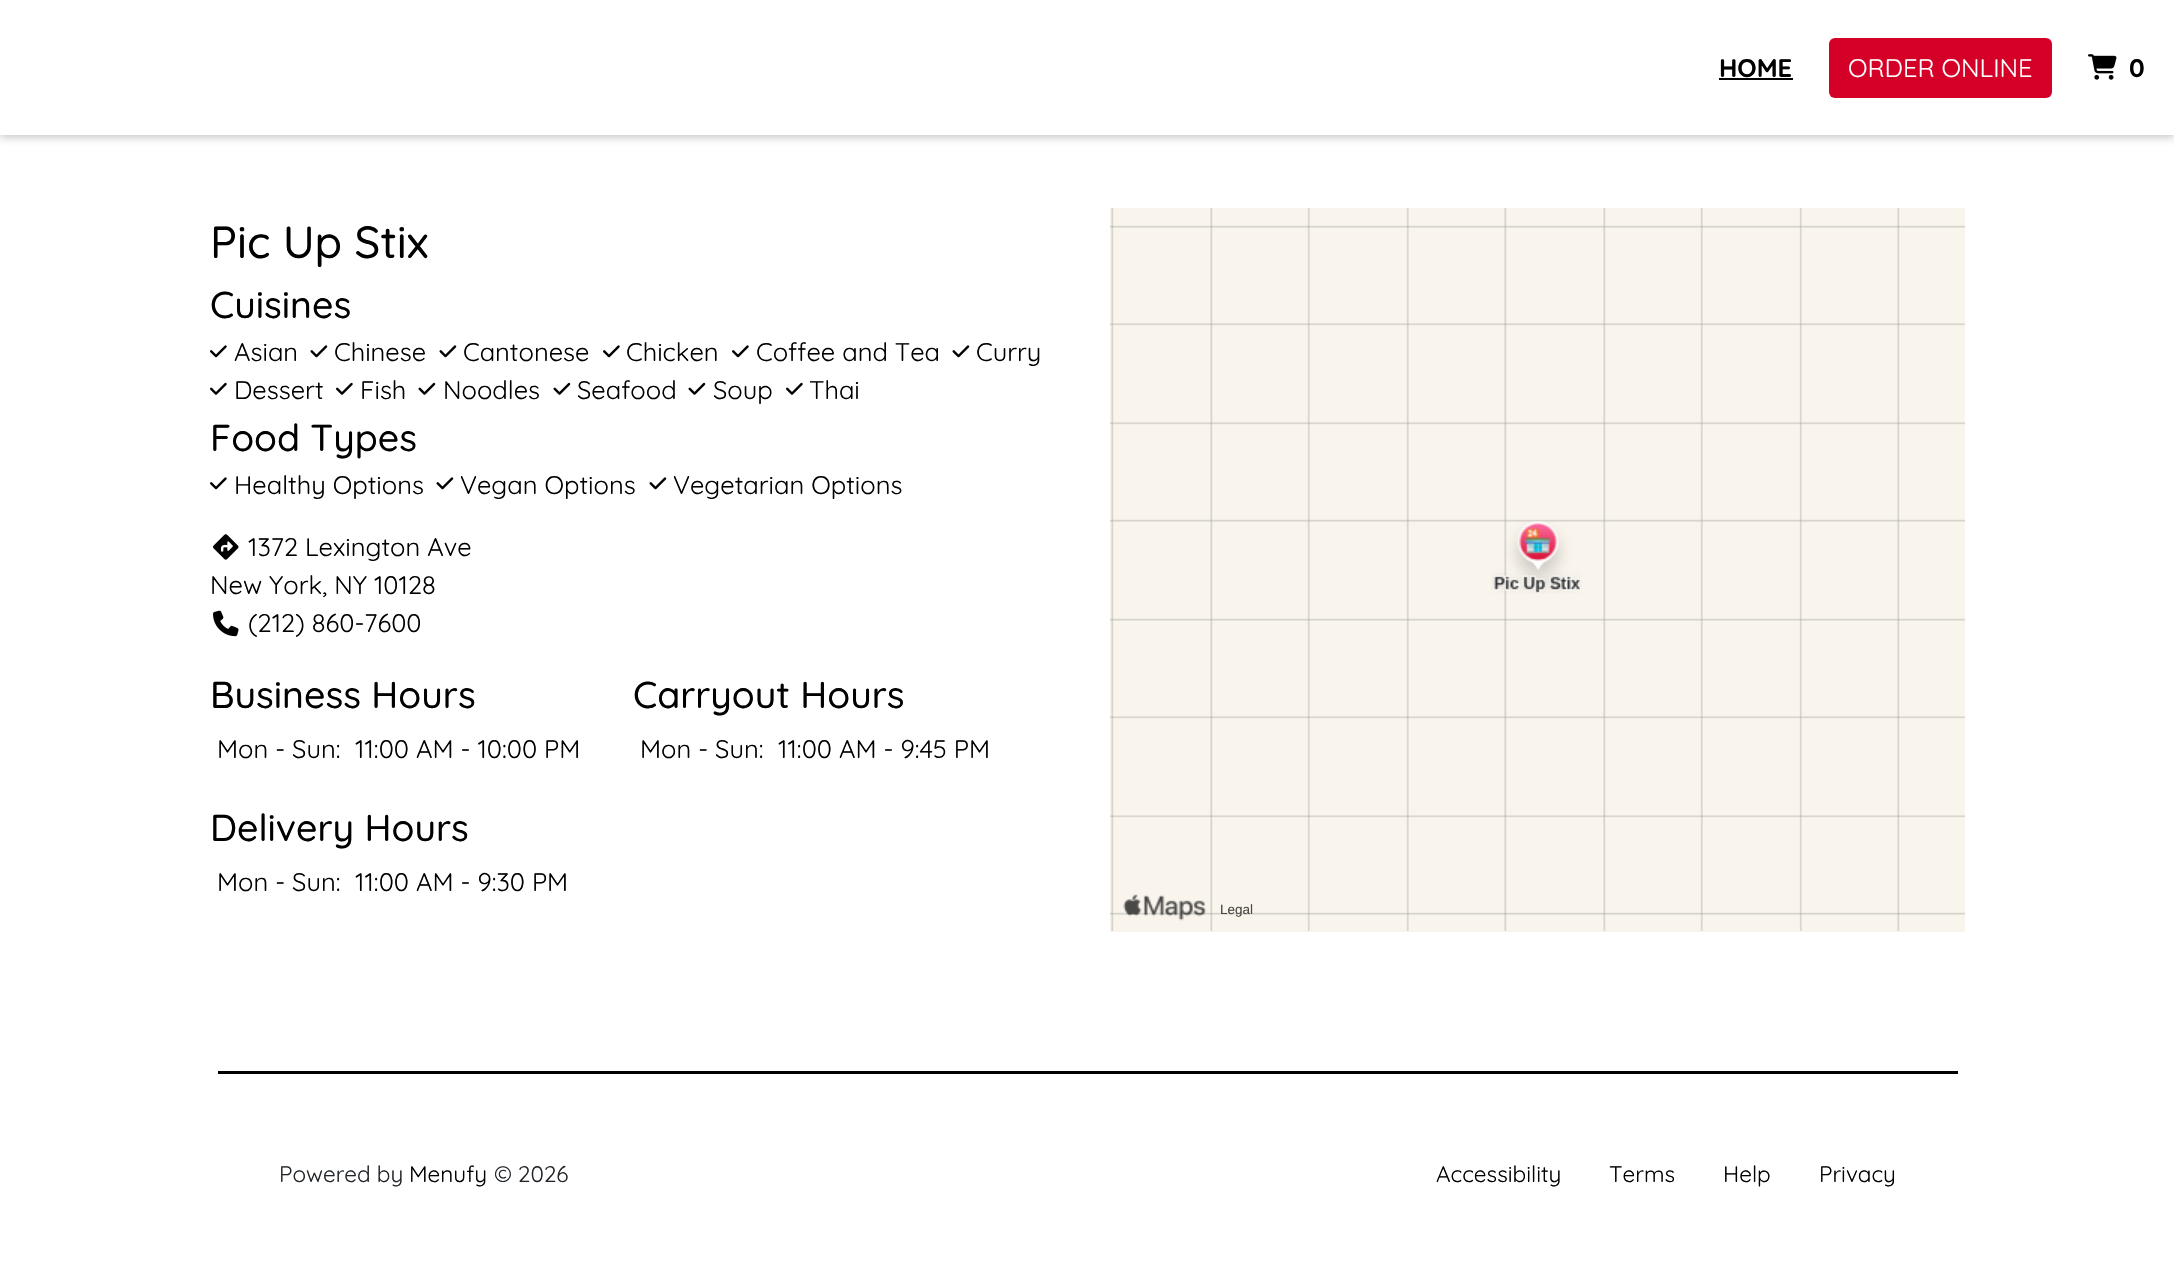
#include "include/core/SkBlurTypes.h"
#include "include/core/SkCanvas.h"
#include "include/core/SkData.h"
#include "include/core/SkFont.h"
#include "include/core/SkFontMgr.h"
#include "include/core/SkImage.h"
#include "include/core/SkMaskFilter.h"
#include "include/core/SkPaint.h"
#include "include/core/SkPathBuilder.h"
#include "include/core/SkTextBlob.h"
#include "include/effects/SkDashPathEffect.h"
#include "include/effects/SkGradientShader.h"
#include "include/utils/SkParsePath.h"

extern sk_sp<SkFontMgr> fontMgr;

void draw(SkCanvas* canvas) {
    SkPaint p;
    p.setAntiAlias(true);
    auto font = [&](const char* family, int weight, float size, bool italic = false) {
        SkFontStyle style(weight, SkFontStyle::kNormal_Width,
            italic ? SkFontStyle::kItalic_Slant : SkFontStyle::kUpright_Slant);
        SkFont result(fontMgr->matchFamilyStyle(family, style), size);
        result.setSubpixel(true);
        return result;
    };
    auto drawPhoto = [&](const char* path, float l, float t, float r, float b) {
        auto image = SkImages::DeferredFromEncodedData(SkData::MakeFromFileName(path));
        canvas->drawImageRect(image, SkRect::MakeLTRB(l, t, r, b), SkSamplingOptions());
    };
    canvas->clear(0xFFFFFFFF);
    p.setColor(0x47202124);
    p.setMaskFilter(SkMaskFilter::MakeBlur(kNormal_SkBlurStyle, 4.5f));
    canvas->drawRect(SkRect::MakeLTRB(0, 2, 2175, 137), p);
    p.setMaskFilter(nullptr);
    p.setColor(0xFFFFFFFF);
    canvas->drawRect(SkRect::MakeLTRB(0, 0, 2174, 135), p);
    auto font1 = font("Quicksand", 700, 25.5f);
    p.setColor(0xFF000000);
    canvas->drawString("HOME", 1719, 77, font1, p);
    canvas->drawRect(SkRect::MakeLTRB(1719, 78, 1793, 80), p);
    p.setColor(0xFFD40027);
    canvas->drawRoundRect(SkRect::MakeLTRB(1829, 38, 2052, 98), 6, 6, p);
    auto font2 = font("Quicksand", 400, 25.5f);
    p.setColor(0xFFFFFFFF);
    canvas->drawString("ORDER ONLINE", 1848, 77, font2, p);
    drawPhoto("media/1.png", 2088, 54, 2117, 80);
    p.setColor(0xFF000000);
    canvas->drawString("0", 2129, 77, font1, p);
    auto font3 = font("Quicksand", 500, 45);
    canvas->drawString("Pic Up Stix", 210, 258, font3, p);
    auto font4 = font("Quicksand", 500, 37.5f);
    canvas->drawString("Cuisines", 210, 318, font4, p);
    drawPhoto("media/2.png", 210, 345, 227, 358);
    canvas->drawString("Asian", 234, 361, font2, p);
    drawPhoto("media/3.png", 310, 345, 328, 358);
    canvas->drawString("Chinese", 334, 361, font2, p);
    drawPhoto("media/3.png", 439, 345, 457, 358);
    canvas->drawString("Cantonese", 463, 361, font2, p);
    drawPhoto("media/2.png", 603, 345, 620, 358);
    canvas->drawString("Chicken", 626, 361, font2, p);
    drawPhoto("media/2.png", 732, 345, 749, 358);
    canvas->drawString("Coffee and Tea", 756, 361, font2, p);
    drawPhoto("media/3.png", 952, 345, 970, 358);
    canvas->drawString("Curry", 976, 361, font2, p);
    drawPhoto("media/4.png", 210, 382, 227, 395);
    canvas->drawString("Dessert", 234, 399, font2, p);
    drawPhoto("media/4.png", 336, 382, 353, 395);
    canvas->drawString("Fish", 360, 399, font2, p);
    drawPhoto("media/5.png", 418, 382, 436, 395);
    canvas->drawString("Noodles", 443, 399, font2, p);
    drawPhoto("media/5.png", 553, 382, 571, 395);
    canvas->drawString("Seafood", 577, 399, font2, p);
    drawPhoto("media/5.png", 688, 382, 706, 395);
    canvas->drawString("Soup", 713, 399, font2, p);
    drawPhoto("media/4.png", 786, 382, 803, 395);
    canvas->drawString("Thai", 809, 399, font2, p);
    canvas->drawString("Food Types", 210, 451, font4, p);
    drawPhoto("media/2.png", 210, 477, 227, 490);
    canvas->drawString("Healthy Options", 234, 494, font2, p);
    drawPhoto("media/3.png", 436, 477, 454, 490);
    canvas->drawString("Vegan Options", 460, 494, font2, p);
    drawPhoto("media/3.png", 649, 477, 667, 490);
    canvas->drawString("Vegetarian Options", 673, 494, font2, p);
    drawPhoto("media/6.png", 213, 534, 239, 560);
    canvas->drawString("1372 Lexington Ave", 248, 556, font2, p);
    canvas->drawString("New York, NY 10128", 210, 594, font2, p);
    drawPhoto("media/7.png", 213, 610, 239, 637);
    canvas->drawString("(212) 860-7600", 248, 632, font2, p);
    canvas->drawString("Business Hours", 210, 708, font4, p);
    canvas->drawString("Mon - Sun:", 217, 758, font2, p);
    canvas->drawString("11:00 AM - 10:00 PM", 355, 758, font2, p);
    canvas->drawString("Carryout Hours", 633, 708, font4, p);
    canvas->drawString("Mon - Sun:", 640, 758, font2, p);
    canvas->drawString("11:00 AM - 9:45 PM", 778, 758, font2, p);
    canvas->drawString("Delivery Hours", 210, 841, font4, p);
    canvas->drawString("Mon - Sun:", 217, 891, font2, p);
    canvas->drawString("11:00 AM - 9:30 PM", 355, 891, font2, p);
    p.setColor(0xFFF9F5ED);
    canvas->drawRect(SkRect::MakeLTRB(1110, 931, 1965, 932), p);
    drawPhoto("media/8.png", 1110, 208, 1965, 931);
    drawPhoto("media/9.png", 1491, 521, 1582, 594);
    drawPhoto("media/10.png", 1123, 894, 1207, 921);
    auto font5 = font("Liberation Sans", 400, 13.5f);
    p.setColor(0xFF494845);
    canvas->drawString("Legal", 1220, 914, font5, p);
    p.setColor(0xFF000000);
    canvas->drawRect(SkRect::MakeLTRB(218, 1071, 1958, 1074), p);
    auto font6 = font("Quicksand", 400, 22.5f);
    p.setColor(0xFF212529);
    canvas->drawString("Powered by", 279, 1182, font6, p);
    p.setColor(0xFF000000);
    canvas->drawString("Menufy", 409, 1182, font6, p);
    p.setColor(0xFF212529);
    canvas->drawString("© 2026", 494, 1182, font6, p);
    p.setColor(0xFF000000);
    {
        const struct { const char* s; float x, y; } items[] = {
            {"Accessibility", 1436, 1182},
            {"Terms", 1609, 1182},
            {"Help", 1723, 1182},
            {"Privacy", 1819, 1182},
        };
        for (auto [s, x, y] : items) {
            canvas->drawString(s, x, y, font6, p);
        }
    }
}
